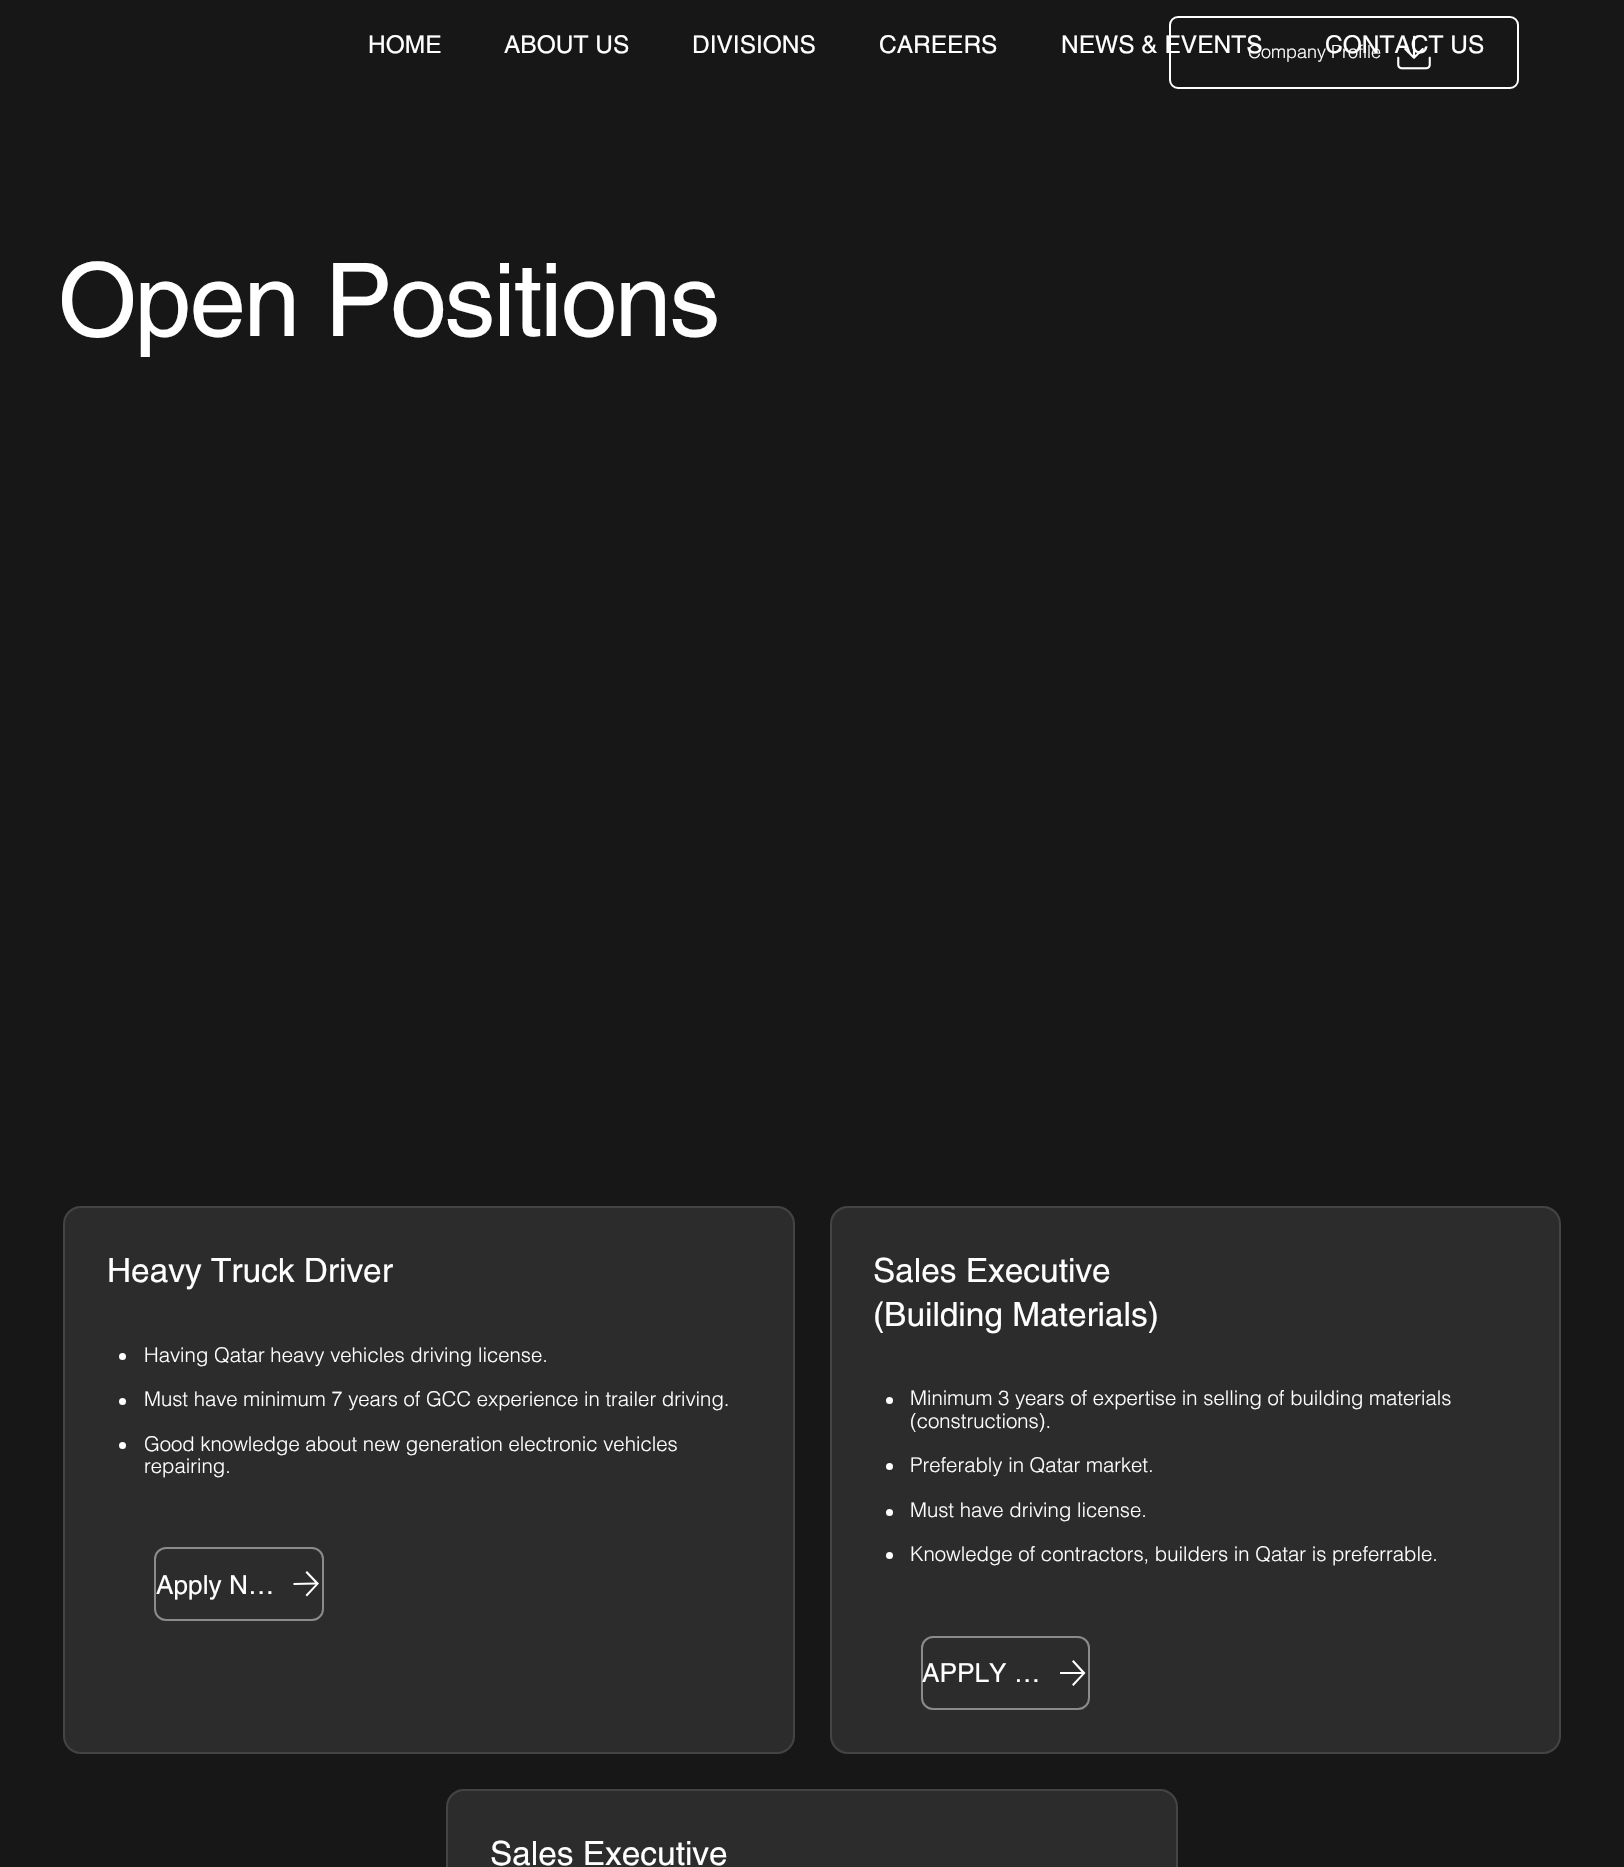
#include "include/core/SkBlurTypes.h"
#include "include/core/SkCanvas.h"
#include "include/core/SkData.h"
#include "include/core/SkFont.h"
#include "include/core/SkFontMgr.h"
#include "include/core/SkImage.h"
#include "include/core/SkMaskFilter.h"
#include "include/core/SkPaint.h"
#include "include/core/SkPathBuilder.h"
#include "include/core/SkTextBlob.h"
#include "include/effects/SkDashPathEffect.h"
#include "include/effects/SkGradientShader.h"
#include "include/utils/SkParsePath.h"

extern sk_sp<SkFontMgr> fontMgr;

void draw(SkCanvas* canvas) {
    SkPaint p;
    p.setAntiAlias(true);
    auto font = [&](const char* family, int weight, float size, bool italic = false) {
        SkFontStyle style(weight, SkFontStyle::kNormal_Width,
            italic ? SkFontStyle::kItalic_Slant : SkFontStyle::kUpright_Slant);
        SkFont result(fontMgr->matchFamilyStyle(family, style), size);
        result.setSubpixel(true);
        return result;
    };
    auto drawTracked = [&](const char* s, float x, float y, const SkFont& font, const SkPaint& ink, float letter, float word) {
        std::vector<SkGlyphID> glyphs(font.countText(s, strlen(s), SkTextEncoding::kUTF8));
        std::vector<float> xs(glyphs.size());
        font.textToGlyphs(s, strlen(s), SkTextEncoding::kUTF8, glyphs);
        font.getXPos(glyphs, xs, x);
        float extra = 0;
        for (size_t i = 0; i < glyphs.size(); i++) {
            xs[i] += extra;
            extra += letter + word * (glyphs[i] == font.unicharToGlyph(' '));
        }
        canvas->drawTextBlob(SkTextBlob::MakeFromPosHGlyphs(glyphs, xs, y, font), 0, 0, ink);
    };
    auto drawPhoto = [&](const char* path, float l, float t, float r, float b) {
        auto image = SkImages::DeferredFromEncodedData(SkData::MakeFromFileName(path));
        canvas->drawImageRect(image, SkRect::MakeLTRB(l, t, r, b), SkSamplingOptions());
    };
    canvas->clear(0xFF171717);
    auto font1 = font("helvetica", 400, 24.5f);
    p.setColor(0xFFFFFFFF);
    {
        const struct { const char* s; float x, y; } items[] = {
            {"HOME", 368, 53},
            {"ABOUT US", 504, 53},
            {"DIVISIONS", 692, 53},
            {"CAREERS", 879, 53},
            {"NEWS & EVENTS", 1061, 53},
            {"CONTACT US", 1325, 53},
        };
        for (auto [s, x, y] : items) {
            canvas->drawString(s, x, y, font1, p);
        }
    }
    p.setStyle(SkPaint::kStroke_Style);
    p.setStrokeWidth(2);
    canvas->drawRoundRect(SkRect::MakeLTRB(1170, 17, 1518, 88), 8, 8, p);
    auto font2 = font("helvetica", 300, 18);
    p.setStyle(SkPaint::kFill_Style);
    canvas->drawString("Company Profile", 1248, 58, font2, p);
    drawPhoto("media/1.png", 1397, 35, 1431, 70);
    auto font3 = font("helvetica", 400, 101.5f);
    drawTracked("Open Positions", 58, 336, font3, p, -2, 0);
    p.setColor(0xFF2C2C2C);
    canvas->drawRoundRect(SkRect::MakeLTRB(63, 1206, 795, 1754), 18, 18, p);
    p.setStyle(SkPaint::kStroke_Style);
    p.setColor(0x33A2A2A2);
    canvas->drawRoundRect(SkRect::MakeLTRB(64, 1207, 794, 1753), 17, 17, p);
    auto font4 = font("helvetica", 400, 33.4f);
    p.setStyle(SkPaint::kFill_Style);
    p.setColor(0xFFFFFFFF);
    canvas->drawString("Heavy Truck Driver", 107, 1282, font4, p);
    canvas->drawCircle(122.5f, 1356.5f, 3.5f, p);
    auto font5 = font("helvetica", 300, 20.3f);
    canvas->drawString("Having Qatar heavy vehicles driving license.", 144, 1362, font5, p);
    canvas->drawCircle(122.5f, 1401.5f, 3.5f, p);
    canvas->drawString("Must have minimum 7 years of GCC experience in trailer driving.", 144, 1406, font5, p);
    canvas->drawCircle(122.5f, 1445.5f, 3.5f, p);
    canvas->drawString("Good knowledge about new generation electronic vehicles", 144, 1451, font5, p);
    canvas->drawString("repairing.", 144, 1473, font5, p);
    p.setStyle(SkPaint::kStroke_Style);
    p.setColor(0xFF8B8B8B);
    canvas->drawRoundRect(SkRect::MakeLTRB(155, 1548, 323, 1620), 11, 11, p);
    auto font6 = font("helvetica", 400, 26.25f);
    p.setStyle(SkPaint::kFill_Style);
    p.setColor(0xFFFFFFFF);
    canvas->drawString("Apply N…", 156, 1594, font6, p);
    canvas->drawPath(SkPathBuilder().moveTo(307, 1571).lineTo(305.5f, 1572.5f).lineTo(315, 1582.5f).lineTo(293.5f, 1583).lineTo(293.5f, 1585).lineTo(315.5f, 1584.5f).lineTo(305.5f, 1595).lineTo(307, 1596.5f).lineTo(319, 1583.5f).close().detach(), p);
    p.setColor(0xFF2C2C2C);
    canvas->drawRoundRect(SkRect::MakeLTRB(830, 1206, 1561, 1754), 18, 18, p);
    p.setStyle(SkPaint::kStroke_Style);
    p.setColor(0x33A2A2A2);
    canvas->drawRoundRect(SkRect::MakeLTRB(831, 1207, 1560, 1753), 17, 17, p);
    p.setStyle(SkPaint::kFill_Style);
    p.setColor(0xFFFFFFFF);
    canvas->drawString("Sales Executive", 873, 1282, font4, p);
    canvas->drawString("(Building Materials)", 873, 1326, font4, p);
    canvas->drawCircle(889.5f, 1400.5f, 3.5f, p);
    canvas->drawString("Minimum 3 years of expertise in selling of building materials", 910, 1405, font5, p);
    canvas->drawString("(constructions).", 910, 1428, font5, p);
    canvas->drawCircle(889.5f, 1466.5f, 3.5f, p);
    canvas->drawString("Preferably in Qatar market.", 910, 1472, font5, p);
    canvas->drawCircle(889.5f, 1512.5f, 3.5f, p);
    canvas->drawString("Must have driving license.", 910, 1517, font5, p);
    canvas->drawCircle(889.5f, 1555.5f, 3.5f, p);
    canvas->drawString("Knowledge of contractors, builders in Qatar is preferrable.", 910, 1561, font5, p);
    p.setStyle(SkPaint::kStroke_Style);
    p.setColor(0xFF8B8B8B);
    canvas->drawRoundRect(SkRect::MakeLTRB(922, 1637, 1089, 1709), 11, 11, p);
    p.setStyle(SkPaint::kFill_Style);
    p.setColor(0xFFFFFFFF);
    canvas->drawString("APPLY …", 922, 1682, font6, p);
    canvas->drawPath(SkPathBuilder().moveTo(1073.5f, 1660).lineTo(1072, 1661.5f).lineTo(1081.5f, 1672).lineTo(1060, 1672).lineTo(1060, 1674).lineTo(1082, 1674).lineTo(1072, 1684.5f).lineTo(1073.5f, 1686).lineTo(1085.5f, 1673).close().detach(), p);
    p.setColor(0xFF2C2C2C);
    canvas->drawRoundRect(SkRect::MakeLTRB(446, 1789, 1178, 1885), 18, 18, p);
    p.setStyle(SkPaint::kStroke_Style);
    p.setColor(0x33A2A2A2);
    canvas->drawRoundRect(SkRect::MakeLTRB(447, 1790, 1177, 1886), 17, 17, p);
    p.setStyle(SkPaint::kFill_Style);
    p.setColor(0xFFFFFFFF);
    canvas->drawString("Sales Executive", 490, 1865, font4, p);
}
